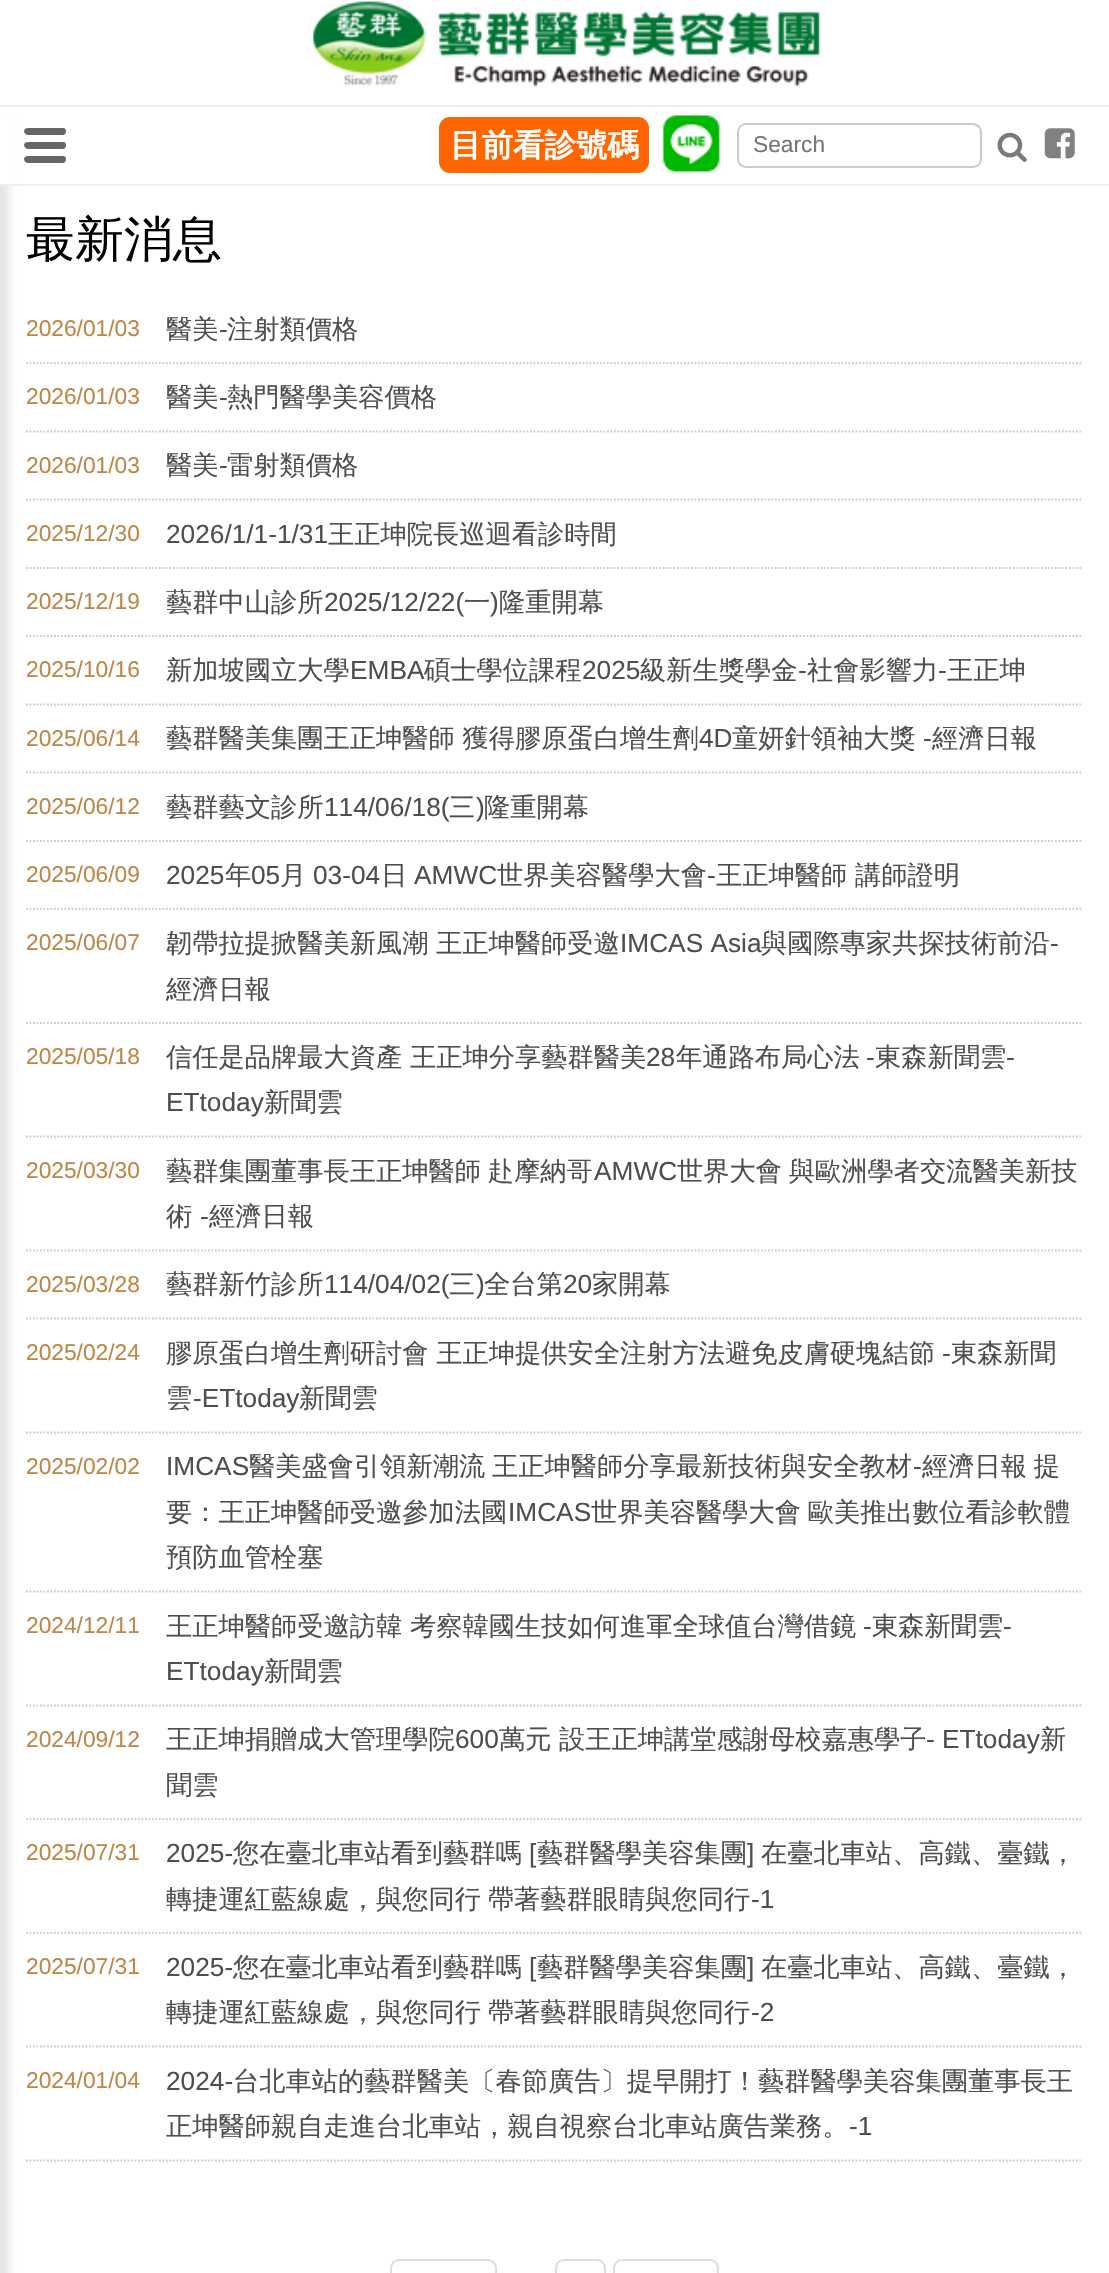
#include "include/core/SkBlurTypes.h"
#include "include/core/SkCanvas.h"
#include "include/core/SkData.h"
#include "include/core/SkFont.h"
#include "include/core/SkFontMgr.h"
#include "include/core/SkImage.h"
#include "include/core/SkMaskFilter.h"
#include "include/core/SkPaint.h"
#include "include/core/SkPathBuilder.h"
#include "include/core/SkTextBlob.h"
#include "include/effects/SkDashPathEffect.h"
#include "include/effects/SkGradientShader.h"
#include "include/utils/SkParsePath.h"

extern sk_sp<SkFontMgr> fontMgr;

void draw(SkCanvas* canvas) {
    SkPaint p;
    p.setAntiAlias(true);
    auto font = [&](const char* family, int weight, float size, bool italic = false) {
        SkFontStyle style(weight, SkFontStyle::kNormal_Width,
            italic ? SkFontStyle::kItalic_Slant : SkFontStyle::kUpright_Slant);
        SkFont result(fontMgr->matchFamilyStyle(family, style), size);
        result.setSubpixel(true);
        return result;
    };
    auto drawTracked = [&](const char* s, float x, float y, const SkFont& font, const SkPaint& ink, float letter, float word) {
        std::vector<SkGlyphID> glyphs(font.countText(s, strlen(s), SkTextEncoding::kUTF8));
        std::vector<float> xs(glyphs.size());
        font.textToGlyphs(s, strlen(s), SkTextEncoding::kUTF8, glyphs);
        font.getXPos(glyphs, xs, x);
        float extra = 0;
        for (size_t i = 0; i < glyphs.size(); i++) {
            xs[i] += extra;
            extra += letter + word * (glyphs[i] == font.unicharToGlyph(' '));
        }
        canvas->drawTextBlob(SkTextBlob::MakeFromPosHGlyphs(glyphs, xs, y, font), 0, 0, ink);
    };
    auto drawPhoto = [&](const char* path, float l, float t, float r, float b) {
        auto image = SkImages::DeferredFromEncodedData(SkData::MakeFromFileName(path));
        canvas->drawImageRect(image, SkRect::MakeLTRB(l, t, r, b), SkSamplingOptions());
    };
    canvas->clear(0xFFFFFFFF);
    p.setColor(0x1A000000);
    p.setMaskFilter(SkMaskFilter::MakeBlur(kNormal_SkBlurStyle, 4.5f));
    canvas->drawRect(SkRect::MakeLTRB(-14, 123, 9, 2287), p);
    p.setMaskFilter(nullptr);
    {
        const struct { float l, t, r, b; SkColor color; } items[] = {
            {0, 117, 15, 184, 0xFFFFFFFF},
            {0, 105, 1109, 107, 0xFFEFEFEF},
            {0, 184, 1109, 186, 0xFFEFEFEF},
        };
        for (auto [l, t, r, b, color] : items) {
            p.setColor(color);
            canvas->drawRect(SkRect::MakeLTRB(l, t, r, b), p);
        }
    }
    p.setColor(0xFF666666);
    canvas->drawPath(SkPathBuilder().moveTo(63, 149).lineTo(28, 149).cubicTo(26, 149, 24, 147, 24, 145).cubicTo(24, 143, 26, 142, 28, 142).lineTo(63, 142).cubicTo(65, 142, 66, 143, 66, 145).cubicTo(66, 147, 65, 149, 63, 149).close().moveTo(63, 163).lineTo(28, 163).cubicTo(26, 163, 24, 161, 24, 159).cubicTo(24, 157, 26, 156, 28, 156).lineTo(63, 156).cubicTo(65, 156, 66, 157, 66, 159).cubicTo(66, 161, 65, 163, 63, 163).close().moveTo(63, 135).lineTo(28, 135).cubicTo(26, 135, 24, 133, 24, 131).cubicTo(24, 129, 26, 128, 28, 128).lineTo(63, 128).cubicTo(65, 128, 66, 129, 66, 131).cubicTo(66, 133, 65, 135, 63, 135).close().detach(), p);
    p.setColor(0xFFFF6600);
    canvas->drawRoundRect(SkRect::MakeLTRB(439, 117, 649, 173), 11, 11, p);
    auto font1 = font("WenQuanYi Zen Hei", 700, 31.5f);
    p.setColor(0xFFFFFFFF);
    canvas->drawString("目前看診號碼", 450, 156, font1, p);
    drawPhoto("media/1.png", 662, 115, 720, 172);
    p.setStyle(SkPaint::kStroke_Style);
    p.setStrokeWidth(2);
    p.setColor(0xFFCACACA);
    canvas->drawRoundRect(SkRect::MakeLTRB(738, 124, 981, 167), 8, 8, p);
    auto font2 = font("Liberation Sans", 400, 22.75f);
    p.setStyle(SkPaint::kFill_Style);
    p.setColor(0xFF757575);
    canvas->drawString("Search", 753, 152, font2, p);
    drawPhoto("media/2.png", 997, 132, 1027, 162);
    drawPhoto("media/3.png", 1044, 128, 1075, 159);
    drawPhoto("media/4.png", 312, 1, 820, 87);
    auto font3 = font("WenQuanYi Zen Hei", 500, 49);
    p.setColor(0xFF000000);
    canvas->drawString("最新消息", 26, 256, font3, p);
    p.setStyle(SkPaint::kStroke_Style);
    p.setStrokeWidth(1.8f);
    p.setColor(0xFFCCCCCC);
    p.setPathEffect(SkDashPathEffect::Make({{1.75f, 1.75f}}, 0));
    canvas->drawPath(SkPathBuilder().moveTo(26, 363).lineTo(1083, 363).detach(), p);
    p.setPathEffect(nullptr);
    p.setStyle(SkPaint::kFill_Style);
    p.setColor(0xFFBD8747);
    canvas->drawString("2026/01/03", 26, 336, font2, p);
    auto font4 = font("WenQuanYi Zen Hei", 500, 26.25f);
    p.setColor(0xFF4D4E51);
    canvas->drawString("醫美", 166, 338, font4, p);
    auto font5 = font("Liberation Sans", 400, 26.25f);
    canvas->drawString("-", 219, 338, font5, p);
    canvas->drawString("注射類價格", 227, 338, font4, p);
    p.setStyle(SkPaint::kStroke_Style);
    p.setColor(0xFFCCCCCC);
    p.setPathEffect(SkDashPathEffect::Make({{1.75f, 1.75f}}, 0));
    canvas->drawPath(SkPathBuilder().moveTo(26, 431.5f).lineTo(1083, 431.5f).detach(), p);
    p.setPathEffect(nullptr);
    p.setStyle(SkPaint::kFill_Style);
    p.setColor(0xFFBD8747);
    canvas->drawString("2026/01/03", 26, 404, font2, p);
    p.setColor(0xFF4D4E51);
    canvas->drawString("醫美", 166, 406, font4, p);
    canvas->drawString("-", 219, 406, font5, p);
    canvas->drawString("熱門醫學美容價格", 227, 406, font4, p);
    p.setStyle(SkPaint::kStroke_Style);
    p.setColor(0xFFCCCCCC);
    p.setPathEffect(SkDashPathEffect::Make({{1.75f, 1.75f}}, 0));
    canvas->drawPath(SkPathBuilder().moveTo(26, 499.5f).lineTo(1083, 499.5f).detach(), p);
    p.setPathEffect(nullptr);
    p.setStyle(SkPaint::kFill_Style);
    p.setColor(0xFFBD8747);
    canvas->drawString("2026/01/03", 26, 473, font2, p);
    p.setColor(0xFF4D4E51);
    canvas->drawString("醫美", 166, 474, font4, p);
    canvas->drawString("-", 219, 474, font5, p);
    canvas->drawString("雷射類價格", 227, 474, font4, p);
    p.setStyle(SkPaint::kStroke_Style);
    p.setColor(0xFFCCCCCC);
    p.setPathEffect(SkDashPathEffect::Make({{1.75f, 1.75f}}, 0));
    canvas->drawPath(SkPathBuilder().moveTo(26, 568).lineTo(1083, 568).detach(), p);
    p.setPathEffect(nullptr);
    p.setStyle(SkPaint::kFill_Style);
    p.setColor(0xFFBD8747);
    canvas->drawString("2025/12/30", 26, 541, font2, p);
    p.setColor(0xFF4D4E51);
    canvas->drawString("2026/1/1-1/31", 166, 543, font5, p);
    canvas->drawString("王正坤院長巡迴看診時間", 328, 543, font4, p);
    p.setStyle(SkPaint::kStroke_Style);
    p.setColor(0xFFCCCCCC);
    p.setPathEffect(SkDashPathEffect::Make({{1.75f, 1.75f}}, 0));
    canvas->drawPath(SkPathBuilder().moveTo(26, 636).lineTo(1083, 636).detach(), p);
    p.setPathEffect(nullptr);
    p.setStyle(SkPaint::kFill_Style);
    p.setColor(0xFFBD8747);
    canvas->drawString("2025/12/19", 26, 609, font2, p);
    p.setColor(0xFF4D4E51);
    canvas->drawString("藝群中山診所", 166, 611, font4, p);
    canvas->drawString("2025/12/22(", 324, 611, font5, p);
    canvas->drawString("一", 464, 611, font4, p);
    canvas->drawString(")", 490, 611, font5, p);
    canvas->drawString("隆重開幕", 499, 611, font4, p);
    p.setStyle(SkPaint::kStroke_Style);
    p.setColor(0xFFCCCCCC);
    p.setPathEffect(SkDashPathEffect::Make({{1.75f, 1.75f}}, 0));
    canvas->drawPath(SkPathBuilder().moveTo(26, 704.5f).lineTo(1083, 704.5f).detach(), p);
    p.setPathEffect(nullptr);
    p.setStyle(SkPaint::kFill_Style);
    p.setColor(0xFFBD8747);
    canvas->drawString("2025/10/16", 26, 677, font2, p);
    p.setColor(0xFF4D4E51);
    canvas->drawString("新加坡國立大學", 166, 679, font4, p);
    canvas->drawString("EMBA", 350, 679, font5, p);
    canvas->drawString("碩士學位課程", 424, 679, font4, p);
    canvas->drawString("2025", 582, 679, font5, p);
    canvas->drawString("級新生獎學金", 640, 679, font4, p);
    canvas->drawString("-", 798, 679, font5, p);
    canvas->drawString("社會影響力", 807, 679, font4, p);
    canvas->drawString("-", 938, 679, font5, p);
    canvas->drawString("王正坤", 947, 679, font4, p);
    p.setStyle(SkPaint::kStroke_Style);
    p.setColor(0xFFCCCCCC);
    p.setPathEffect(SkDashPathEffect::Make({{1.75f, 1.75f}}, 0));
    canvas->drawPath(SkPathBuilder().moveTo(26, 772.5f).lineTo(1083, 772.5f).detach(), p);
    p.setPathEffect(nullptr);
    p.setStyle(SkPaint::kFill_Style);
    p.setColor(0xFFBD8747);
    canvas->drawString("2025/06/14", 26, 746, font2, p);
    p.setColor(0xFF4D4E51);
    canvas->drawString("藝群醫美集團王正坤醫師 獲得膠原蛋白增生劑", 166, 747, font4, p);
    canvas->drawString("4D", 699, 747, font5, p);
    canvas->drawString("童妍針領袖大獎", 732, 747, font4, p);
    canvas->drawString("-", 923, 747, font5, p);
    canvas->drawString("經濟日報", 932, 747, font4, p);
    p.setStyle(SkPaint::kStroke_Style);
    p.setColor(0xFFCCCCCC);
    p.setPathEffect(SkDashPathEffect::Make({{1.75f, 1.75f}}, 0));
    canvas->drawPath(SkPathBuilder().moveTo(26, 841).lineTo(1083, 841).detach(), p);
    p.setPathEffect(nullptr);
    p.setStyle(SkPaint::kFill_Style);
    p.setColor(0xFFBD8747);
    canvas->drawString("2025/06/12", 26, 814, font2, p);
    p.setColor(0xFF4D4E51);
    canvas->drawString("藝群藝文診所", 166, 816, font4, p);
    canvas->drawString("114/06/18(", 324, 816, font5, p);
    canvas->drawString("三", 449, 816, font4, p);
    canvas->drawString(")", 476, 816, font5, p);
    canvas->drawString("隆重開幕", 484, 816, font4, p);
    p.setStyle(SkPaint::kStroke_Style);
    p.setColor(0xFFCCCCCC);
    p.setPathEffect(SkDashPathEffect::Make({{1.75f, 1.75f}}, 0));
    canvas->drawPath(SkPathBuilder().moveTo(26, 909).lineTo(1083, 909).detach(), p);
    p.setPathEffect(nullptr);
    p.setStyle(SkPaint::kFill_Style);
    p.setColor(0xFFBD8747);
    canvas->drawString("2025/06/09", 26, 882, font2, p);
    p.setColor(0xFF4D4E51);
    canvas->drawString("2025", 166, 884, font5, p);
    canvas->drawString("年", 225, 884, font4, p);
    canvas->drawString("05", 251, 884, font5, p);
    canvas->drawString("月", 280, 884, font4, p);
    canvas->drawString("03-04", 313, 884, font5, p);
    canvas->drawString("日", 381, 884, font4, p);
    canvas->drawString("AMWC", 414, 884, font5, p);
    canvas->drawString("世界美容醫學大會", 497, 884, font4, p);
    canvas->drawString("-", 707, 884, font5, p);
    canvas->drawString("王正坤醫師 講師證明", 716, 884, font4, p);
    p.setStyle(SkPaint::kStroke_Style);
    p.setColor(0xFFCCCCCC);
    p.setPathEffect(SkDashPathEffect::Make({{1.75f, 1.75f}}, 0));
    canvas->drawPath(SkPathBuilder().moveTo(26, 1023).lineTo(1083, 1023).detach(), p);
    p.setPathEffect(nullptr);
    p.setStyle(SkPaint::kFill_Style);
    p.setColor(0xFFBD8747);
    canvas->drawString("2025/06/07", 26, 950, font2, p);
    p.setColor(0xFF4D4E51);
    canvas->drawString("韌帶拉提掀醫美新風潮", 166, 952, font4, p);
    canvas->drawString("王正坤醫師受邀", 436, 952, font4, p);
    canvas->drawString("IMCAS Asia", 620, 952, font5, p);
    canvas->drawString("與國際專家共探技術前沿", 761, 952, font4, p);
    canvas->drawString("-", 1050, 952, font5, p);
    canvas->drawString("經濟日報", 166, 998, font4, p);
    p.setStyle(SkPaint::kStroke_Style);
    p.setColor(0xFFCCCCCC);
    p.setPathEffect(SkDashPathEffect::Make({{1.75f, 1.75f}}, 0));
    canvas->drawPath(SkPathBuilder().moveTo(26, 1136.5f).lineTo(1083, 1136.5f).detach(), p);
    p.setPathEffect(nullptr);
    p.setStyle(SkPaint::kFill_Style);
    p.setColor(0xFFBD8747);
    canvas->drawString("2025/05/18", 26, 1064, font2, p);
    p.setColor(0xFF4D4E51);
    canvas->drawString("信任是品牌最大資產 王正坤分享藝群醫美", 166, 1066, font4, p);
    canvas->drawString("28", 646, 1066, font5, p);
    canvas->drawString("年通路布局心法", 676, 1066, font4, p);
    canvas->drawString("-", 866, 1066, font5, p);
    canvas->drawString("東森新聞雲", 875, 1066, font4, p);
    canvas->drawString("-", 1006, 1066, font5, p);
    canvas->drawString("ETtoday", 166, 1111, font5, p);
    canvas->drawString("新聞雲", 264, 1111, font4, p);
    p.setStyle(SkPaint::kStroke_Style);
    p.setColor(0xFFCCCCCC);
    p.setPathEffect(SkDashPathEffect::Make({{1.75f, 1.75f}}, 0));
    canvas->drawPath(SkPathBuilder().moveTo(26, 1250.5f).lineTo(1083, 1250.5f).detach(), p);
    p.setPathEffect(nullptr);
    p.setStyle(SkPaint::kFill_Style);
    p.setColor(0xFFBD8747);
    canvas->drawString("2025/03/30", 26, 1178, font2, p);
    p.setColor(0xFF4D4E51);
    drawTracked("藝群集團董事長王正坤醫師 赴摩納哥", 166, 1180, font4, p, 0, -1);
    canvas->drawString("AMWC", 594, 1180, font5, p);
    drawTracked("世界大會 與歐洲學者交流醫美新技", 677, 1180, font4, p, 0, -1);
    canvas->drawString("術", 166, 1225, font4, p);
    canvas->drawString("-", 200, 1225, font5, p);
    canvas->drawString("經濟日報", 209, 1225, font4, p);
    p.setStyle(SkPaint::kStroke_Style);
    p.setColor(0xFFCCCCCC);
    p.setPathEffect(SkDashPathEffect::Make({{1.75f, 1.75f}}, 0));
    canvas->drawPath(SkPathBuilder().moveTo(26, 1318.5f).lineTo(1083, 1318.5f).detach(), p);
    p.setPathEffect(nullptr);
    p.setStyle(SkPaint::kFill_Style);
    p.setColor(0xFFBD8747);
    canvas->drawString("2025/03/28", 26, 1292, font2, p);
    p.setColor(0xFF4D4E51);
    canvas->drawString("藝群新竹診所", 166, 1293, font4, p);
    canvas->drawString("114/04/02(", 324, 1293, font5, p);
    canvas->drawString("三", 449, 1293, font4, p);
    canvas->drawString(")", 476, 1293, font5, p);
    canvas->drawString("全台第", 484, 1293, font4, p);
    canvas->drawString("20", 563, 1293, font5, p);
    canvas->drawString("家開幕", 592, 1293, font4, p);
    p.setStyle(SkPaint::kStroke_Style);
    p.setColor(0xFFCCCCCC);
    p.setPathEffect(SkDashPathEffect::Make({{1.75f, 1.75f}}, 0));
    canvas->drawPath(SkPathBuilder().moveTo(26, 1432.5f).lineTo(1083, 1432.5f).detach(), p);
    p.setPathEffect(nullptr);
    p.setStyle(SkPaint::kFill_Style);
    p.setColor(0xFFBD8747);
    canvas->drawString("2025/02/24", 26, 1360, font2, p);
    p.setColor(0xFF4D4E51);
    canvas->drawString("膠原蛋白增生劑研討會 王正坤提供安全注射方法避免皮膚硬塊結節", 166, 1362, font4, p);
    canvas->drawString("-", 942, 1362, font5, p);
    canvas->drawString("東森新聞", 951, 1362, font4, p);
    canvas->drawString("雲", 166, 1407, font4, p);
    canvas->drawString("-ETtoday", 193, 1407, font5, p);
    canvas->drawString("新聞雲", 299, 1407, font4, p);
    p.setStyle(SkPaint::kStroke_Style);
    p.setColor(0xFFCCCCCC);
    p.setPathEffect(SkDashPathEffect::Make({{1.75f, 1.75f}}, 0));
    canvas->drawPath(SkPathBuilder().moveTo(26, 1591.5f).lineTo(1083, 1591.5f).detach(), p);
    p.setPathEffect(nullptr);
    p.setStyle(SkPaint::kFill_Style);
    p.setColor(0xFFBD8747);
    canvas->drawString("2025/02/02", 26, 1474, font2, p);
    p.setColor(0xFF4D4E51);
    canvas->drawString("IMCAS", 166, 1475, font5, p);
    drawTracked("醫美盛會引領新潮流 王正坤醫師分享最新技術與安全教材", 249, 1475, font4, p, 0, -1);
    canvas->drawString("-", 913, 1475, font5, p);
    drawTracked("經濟日報 提", 922, 1475, font4, p, 0, -1);
    canvas->drawString("要：王正坤醫師受邀參加法國", 166, 1521, font4, p);
    canvas->drawString("IMCAS", 508, 1521, font5, p);
    drawTracked("世界美容醫學大會 歐美推出數位看診軟體", 591, 1521, font4, p, 0, -1);
    canvas->drawString("預防血管栓塞", 166, 1566, font4, p);
    p.setStyle(SkPaint::kStroke_Style);
    p.setColor(0xFFCCCCCC);
    p.setPathEffect(SkDashPathEffect::Make({{1.75f, 1.75f}}, 0));
    canvas->drawPath(SkPathBuilder().moveTo(26, 1705.5f).lineTo(1083, 1705.5f).detach(), p);
    p.setPathEffect(nullptr);
    p.setStyle(SkPaint::kFill_Style);
    p.setColor(0xFFBD8747);
    canvas->drawString("2024/12/11", 26, 1633, font2, p);
    p.setColor(0xFF4D4E51);
    canvas->drawString("王正坤醫師受邀訪韓 考察韓國生技如何進軍全球值台灣借鏡", 166, 1635, font4, p);
    canvas->drawString("-", 863, 1635, font5, p);
    canvas->drawString("東森新聞雲", 872, 1635, font4, p);
    canvas->drawString("-", 1003, 1635, font5, p);
    canvas->drawString("ETtoday", 166, 1680, font5, p);
    canvas->drawString("新聞雲", 264, 1680, font4, p);
    p.setStyle(SkPaint::kStroke_Style);
    p.setColor(0xFFCCCCCC);
    p.setPathEffect(SkDashPathEffect::Make({{1.75f, 1.75f}}, 0));
    canvas->drawPath(SkPathBuilder().moveTo(26, 1819).lineTo(1083, 1819).detach(), p);
    p.setPathEffect(nullptr);
    p.setStyle(SkPaint::kFill_Style);
    p.setColor(0xFFBD8747);
    canvas->drawString("2024/09/12", 26, 1747, font2, p);
    p.setColor(0xFF4D4E51);
    canvas->drawString("王正坤捐贈成大管理學院", 166, 1748, font4, p);
    canvas->drawString("600", 455, 1748, font5, p);
    canvas->drawString("萬元", 499, 1748, font4, p);
    canvas->drawString("設王正坤講堂感謝母校嘉惠學子", 559, 1748, font4, p);
    canvas->drawString("- ETtoday", 926, 1748, font5, p);
    canvas->drawString("新", 1040, 1748, font4, p);
    canvas->drawString("聞雲", 166, 1794, font4, p);
    p.setStyle(SkPaint::kStroke_Style);
    p.setColor(0xFFCCCCCC);
    p.setPathEffect(SkDashPathEffect::Make({{1.75f, 1.75f}}, 0));
    canvas->drawPath(SkPathBuilder().moveTo(26, 1933).lineTo(1083, 1933).detach(), p);
    p.setPathEffect(nullptr);
    p.setStyle(SkPaint::kFill_Style);
    p.setColor(0xFFBD8747);
    canvas->drawString("2025/07/31", 26, 1860, font2, p);
    p.setColor(0xFF4D4E51);
    canvas->drawString("2025-", 166, 1862, font5, p);
    canvas->drawString("您在臺北車站看到藝群嗎", 233, 1862, font4, p);
    canvas->drawString("[", 529, 1862, font5, p);
    canvas->drawString("藝群醫學美容集團", 537, 1862, font4, p);
    canvas->drawString("]", 747, 1862, font5, p);
    canvas->drawString("在臺北車站、高鐵、臺鐵，", 761, 1862, font4, p);
    drawTracked("轉捷運紅藍線處，與您同行 帶著藝群眼睛與您同行", 166, 1908, font4, p, 0, -1);
    canvas->drawString("-1", 751, 1908, font5, p);
    p.setStyle(SkPaint::kStroke_Style);
    p.setColor(0xFFCCCCCC);
    p.setPathEffect(SkDashPathEffect::Make({{1.75f, 1.75f}}, 0));
    canvas->drawPath(SkPathBuilder().moveTo(26, 2046.5f).lineTo(1083, 2046.5f).detach(), p);
    p.setPathEffect(nullptr);
    p.setStyle(SkPaint::kFill_Style);
    p.setColor(0xFFBD8747);
    canvas->drawString("2025/07/31", 26, 1974, font2, p);
    p.setColor(0xFF4D4E51);
    canvas->drawString("2025-", 166, 1976, font5, p);
    canvas->drawString("您在臺北車站看到藝群嗎", 233, 1976, font4, p);
    canvas->drawString("[", 529, 1976, font5, p);
    canvas->drawString("藝群醫學美容集團", 537, 1976, font4, p);
    canvas->drawString("]", 747, 1976, font5, p);
    canvas->drawString("在臺北車站、高鐵、臺鐵，", 761, 1976, font4, p);
    drawTracked("轉捷運紅藍線處，與您同行 帶著藝群眼睛與您同行", 166, 2021, font4, p, 0, -1);
    canvas->drawString("-2", 751, 2021, font5, p);
    p.setStyle(SkPaint::kStroke_Style);
    p.setColor(0xFFCCCCCC);
    p.setPathEffect(SkDashPathEffect::Make({{1.75f, 1.75f}}, 0));
    canvas->drawPath(SkPathBuilder().moveTo(26, 2160.5f).lineTo(1083, 2160.5f).detach(), p);
    p.setPathEffect(nullptr);
    p.setStyle(SkPaint::kFill_Style);
    p.setColor(0xFFBD8747);
    canvas->drawString("2024/01/04", 26, 2088, font2, p);
    p.setColor(0xFF4D4E51);
    canvas->drawString("2024-", 166, 2090, font5, p);
    canvas->drawString("台北車站的藝群醫美〔春節廣告〕提早開打！藝群醫學美容集團董事長王", 233, 2090, font4, p);
    canvas->drawString("正坤醫師親自走進台北車站，親自視察台北車站廣告業務。", 166, 2135, font4, p);
    canvas->drawString("-1", 849, 2135, font5, p);
    p.setStyle(SkPaint::kStroke_Style);
    p.setStrokeWidth(2);
    p.setColor(0xFFDDDDDD);
    canvas->drawRoundRect(SkRect::MakeLTRB(391, 2260, 496, 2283), 8, 8, p);
    canvas->drawRoundRect(SkRect::MakeLTRB(556, 2260, 605, 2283), 8, 8, p);
    canvas->drawRoundRect(SkRect::MakeLTRB(614, 2260, 718, 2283), 8, 8, p);
}
